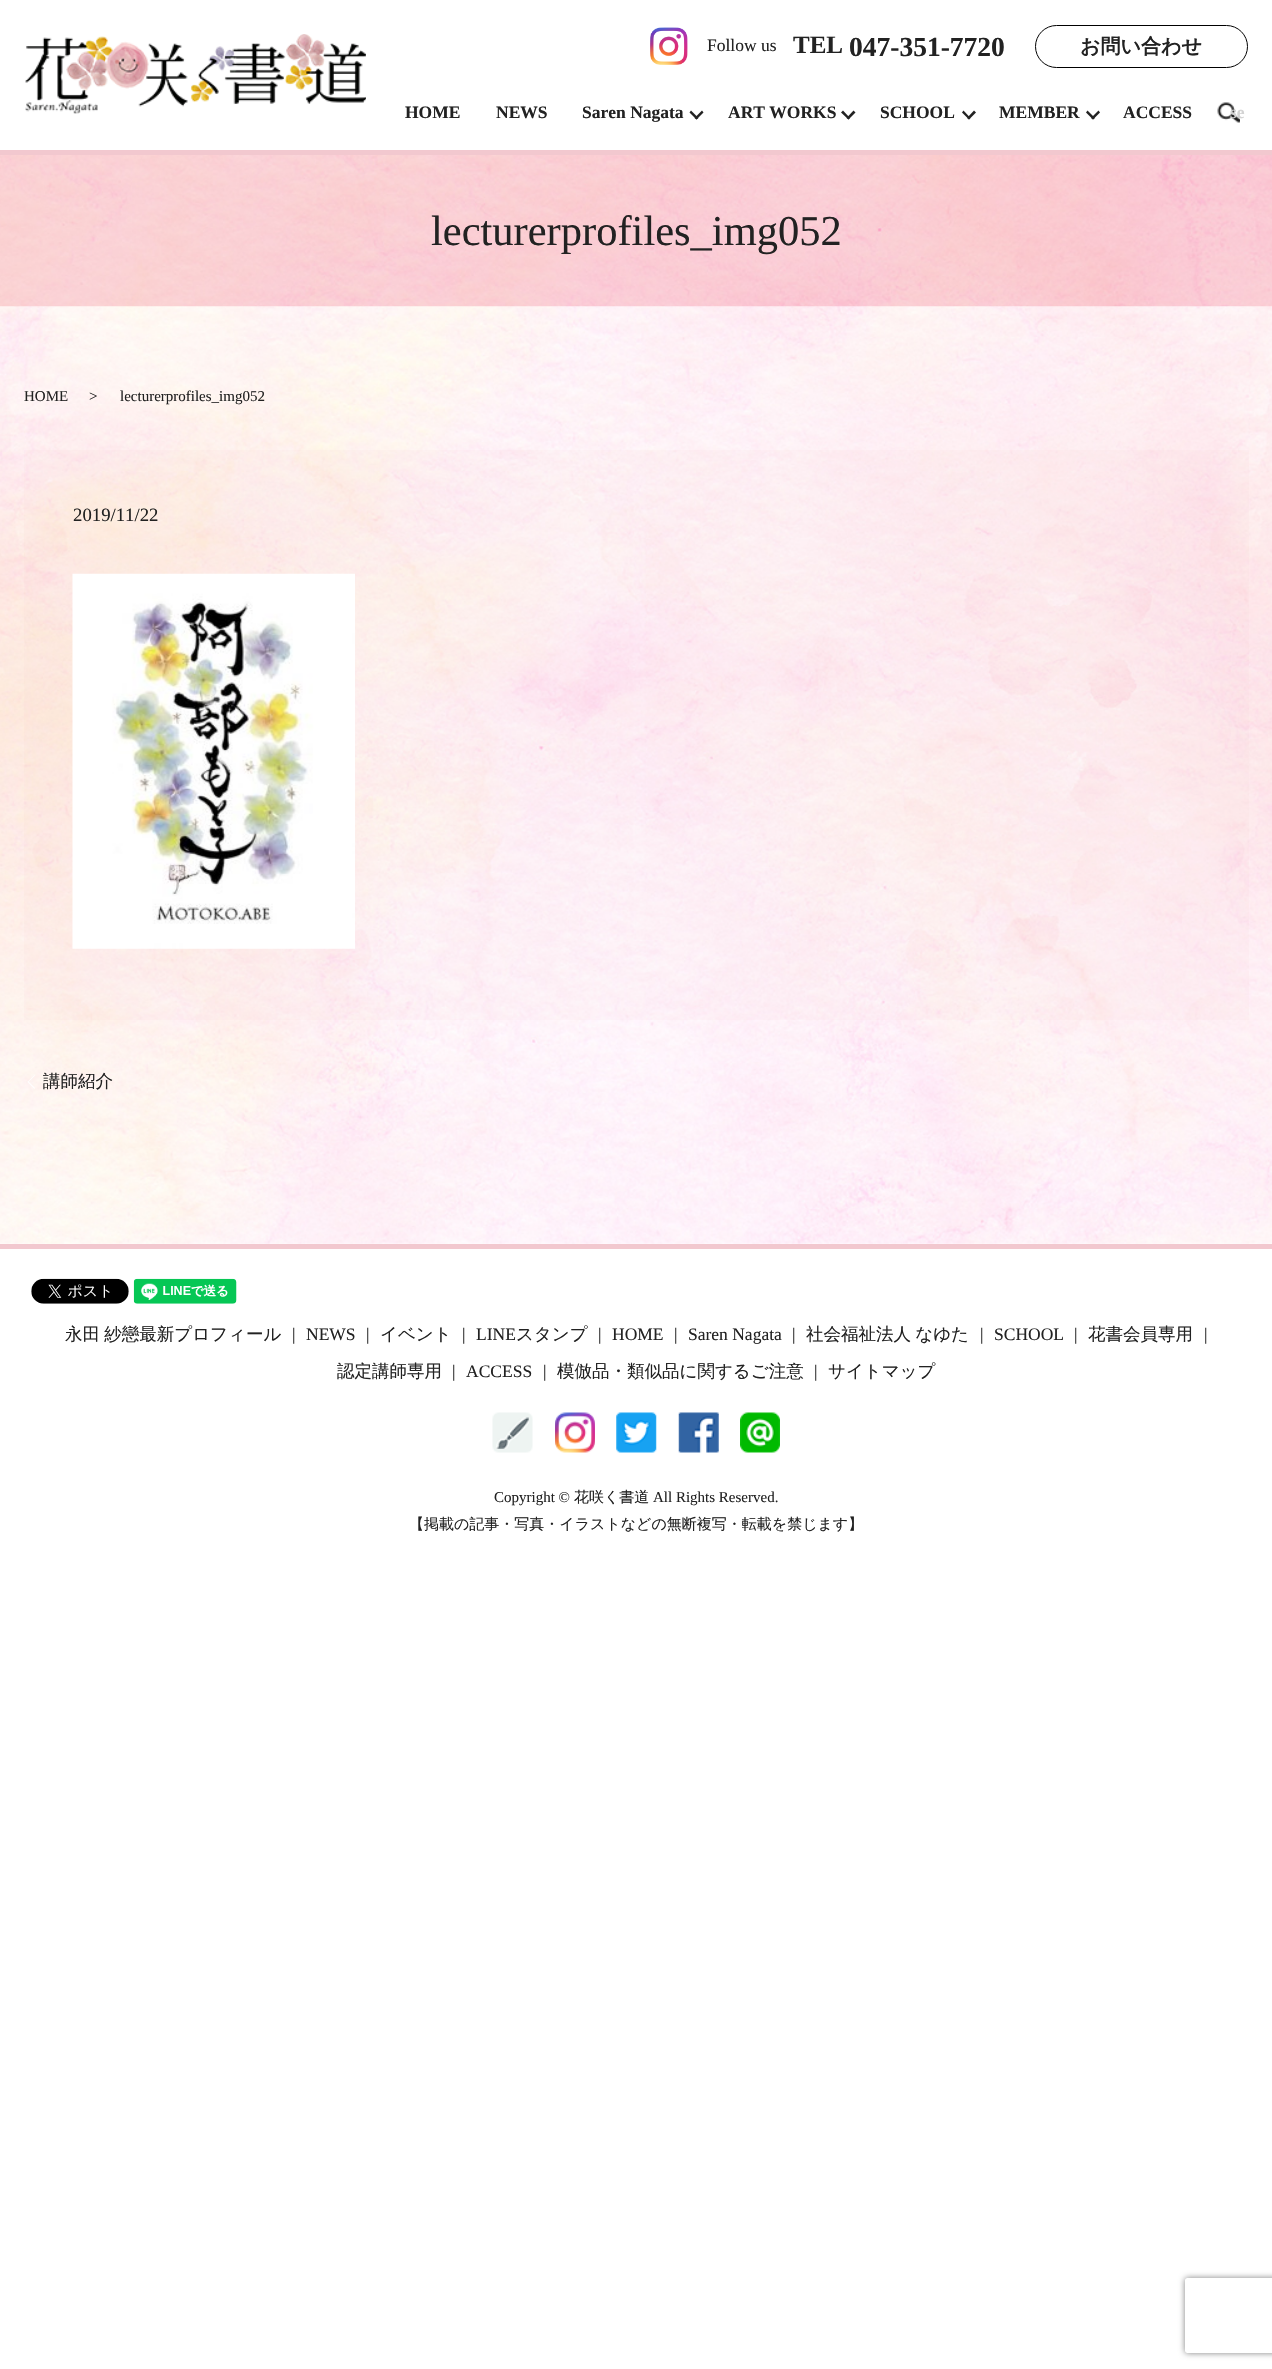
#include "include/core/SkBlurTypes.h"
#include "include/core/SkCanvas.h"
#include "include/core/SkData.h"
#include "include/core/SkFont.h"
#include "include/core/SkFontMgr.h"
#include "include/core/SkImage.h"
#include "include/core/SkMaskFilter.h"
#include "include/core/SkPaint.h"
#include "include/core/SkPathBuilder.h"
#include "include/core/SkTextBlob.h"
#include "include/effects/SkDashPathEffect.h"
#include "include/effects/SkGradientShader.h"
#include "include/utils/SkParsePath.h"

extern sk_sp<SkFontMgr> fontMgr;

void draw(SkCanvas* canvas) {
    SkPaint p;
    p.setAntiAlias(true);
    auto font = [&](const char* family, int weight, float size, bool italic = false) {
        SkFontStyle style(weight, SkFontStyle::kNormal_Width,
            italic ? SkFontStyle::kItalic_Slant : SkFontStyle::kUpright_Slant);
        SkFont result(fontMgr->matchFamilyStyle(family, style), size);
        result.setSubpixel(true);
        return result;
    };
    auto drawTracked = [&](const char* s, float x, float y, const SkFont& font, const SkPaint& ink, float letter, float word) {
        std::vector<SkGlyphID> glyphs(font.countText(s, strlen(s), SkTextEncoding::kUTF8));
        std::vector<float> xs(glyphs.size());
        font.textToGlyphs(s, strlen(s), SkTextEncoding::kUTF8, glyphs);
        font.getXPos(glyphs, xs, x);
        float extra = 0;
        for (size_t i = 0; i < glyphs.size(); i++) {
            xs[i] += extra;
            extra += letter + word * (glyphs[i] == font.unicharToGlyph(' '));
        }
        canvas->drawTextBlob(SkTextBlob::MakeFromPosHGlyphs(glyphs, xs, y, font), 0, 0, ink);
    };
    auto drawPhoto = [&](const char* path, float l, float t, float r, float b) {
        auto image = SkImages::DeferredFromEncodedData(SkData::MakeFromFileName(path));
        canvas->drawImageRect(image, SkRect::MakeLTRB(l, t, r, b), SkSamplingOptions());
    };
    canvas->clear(0xFFFFFFFF);
    p.setColor(0xFFF2C8CF);
    canvas->drawRect(SkRect::MakeLTRB(0, 150, 1272, 155), p);
    drawPhoto("media/1.png", 25, 34, 366, 114);
    drawPhoto("media/2.png", 650, 27, 688, 65);
    auto font1 = font("Liberation Serif", 400, 17.5f);
    p.setColor(0xFF222222);
    canvas->drawString("Follow us", 707, 51, font1, p);
    auto font2 = font("Liberation Serif", 700, 25);
    canvas->drawString("TEL", 793, 53, font2, p);
    auto font3 = font("Liberation Serif", 700, 27.5f);
    canvas->drawString("047-351-7720", 849, 56, font3, p);
    p.setStyle(SkPaint::kStroke_Style);
    p.setStrokeWidth(1);
    p.setColor(0xFF000000);
    canvas->drawRoundRect(SkRect::MakeLTRB(1035.5f, 25.5f, 1247.5f, 67.5f), 21, 21, p);
    auto font4 = font("WenQuanYi Zen Hei", 700, 20);
    p.setStyle(SkPaint::kFill_Style);
    p.setColor(0xFF222222);
    canvas->drawString("お問い合わせ", 1080, 53, font4, p);
    auto font5 = font("Liberation Serif", 700, 17.5f);
    {
        const struct { const char* s; float x, y; } items[] = {
            {"HOME", 405, 118},
            {"NEWS", 496, 118},
            {"Saren Nagata", 582, 118},
        };
        for (auto [s, x, y] : items) {
            canvas->drawString(s, x, y, font5, p);
        }
    }
    canvas->drawPath(SkPathBuilder().moveTo(703.5f, 112.5f).lineTo(696.5f, 119.5f).lineTo(694.5f, 118).lineTo(702, 110.5f).close().detach(), p);
    canvas->drawPath(SkPathBuilder().moveTo(698.5f, 118).lineTo(696.5f, 119.5f).lineTo(689.5f, 112.5f).lineTo(691, 110.5f).close().detach(), p);
    canvas->drawString("ART WORKS", 728, 118, font5, p);
    canvas->drawPath(SkPathBuilder().moveTo(855.5f, 112.5f).lineTo(848.5f, 119.5f).lineTo(846.5f, 118).lineTo(853.5f, 110.5f).close().detach(), p);
    canvas->drawPath(SkPathBuilder().moveTo(850, 118).lineTo(848.5f, 119.5f).lineTo(841, 112.5f).lineTo(843, 110.5f).close().detach(), p);
    canvas->drawString("SCHOOL", 880, 118, font5, p);
    canvas->drawPath(SkPathBuilder().moveTo(976, 112.5f).lineTo(969, 119.5f).lineTo(967, 118).lineTo(974, 110.5f).close().detach(), p);
    canvas->drawPath(SkPathBuilder().moveTo(970.5f, 118).lineTo(969, 119.5f).lineTo(962, 112.5f).lineTo(963.5f, 110.5f).close().detach(), p);
    canvas->drawString("MEMBER", 999, 118, font5, p);
    canvas->drawPath(SkPathBuilder().moveTo(1100, 112.5f).lineTo(1093, 119.5f).lineTo(1091, 118).lineTo(1098.5f, 110.5f).close().detach(), p);
    canvas->drawPath(SkPathBuilder().moveTo(1095, 118).lineTo(1093, 119.5f).lineTo(1086, 112.5f).lineTo(1087.5f, 110.5f).close().detach(), p);
    canvas->drawString("ACCESS", 1123, 118, font5, p);
    drawPhoto("media/3.png", 1217, 102, 1240, 123);
    p.setColor(0xFFD3D3D3);
    canvas->drawString("se", 1230, 118, font5, p);
    drawPhoto("media/4.png", 0, 306, 1272, 1244);
    drawPhoto("media/5.png", 0, 155, 1272, 307);
    auto font6 = font("Liberation Serif", 400, 42.5f);
    p.setColor(0xFF222222);
    canvas->drawString("lecturerprofiles_img052", 431, 245, font6, p);
    auto font7 = font("Liberation Serif", 400, 15);
    {
        const struct { const char* s; float x, y; } items[] = {
            {"HOME", 24, 401},
            {">", 89, 401},
            {"lecturerprofiles_img052", 120, 401},
        };
        for (auto [s, x, y] : items) {
            canvas->drawString(s, x, y, font7, p);
        }
    }
    p.setColor(0x0DF2AFBA);
    canvas->drawRect(SkRect::MakeLTRB(24, 450, 1249, 1020), p);
    auto font8 = font("Liberation Serif", 400, 18.75f);
    p.setColor(0xFF222222);
    canvas->drawString("2019/11/22", 73, 521, font8, p);
    drawPhoto("media/6.png", 72, 573, 355, 949);
    p.setColor(0xFFFFFFFF);
    canvas->drawPath(SkPathBuilder().moveTo(27.5f, 1082).lineTo(34.5f, 1075).lineTo(35, 1075.5f).lineTo(28, 1082.5f).close().detach(), p);
    auto font9 = font("WenQuanYi Zen Hei", 500, 17.5f);
    p.setColor(0xFF222222);
    canvas->drawString("講師紹介", 43, 1087, font9, p);
    p.setColor(0xFFFFFFFF);
    canvas->drawPath(SkPathBuilder().moveTo(34.5f, 1089).lineTo(27.5f, 1082).lineTo(28, 1081).lineTo(35, 1088).close().detach(), p);
    p.setColor(0xFFF2C8CF);
    canvas->drawRect(SkRect::MakeLTRB(0, 1244, 1272, 1249), p);
    drawPhoto("media/7.png", 31, 1278, 129, 1304);
    drawPhoto("media/8.png", 133, 1278, 237, 1304);
    p.setColor(0xFF222222);
    drawTracked("永田 紗戀最新プロフィール", 65, 1340, font9, p, 0, -1);
    {
        const struct { const char* s; float x, y; } items[] = {
            {"|", 292, 1340},
            {"NEWS", 306, 1340},
            {"|", 462, 1340},
            {"LINE", 476, 1340},
        };
        for (auto [s, x, y] : items) {
            canvas->drawString(s, x, y, font1, p);
        }
    }
    canvas->drawString("スタンプ", 516, 1340, font9, p);
    canvas->drawString("|", 792, 1340, font1, p);
    drawTracked("社会福祉法人 なゆた", 806, 1340, font9, p, 0, -1);
    canvas->drawString("|", 1074, 1340, font1, p);
    canvas->drawString("花書会員専用", 1088, 1340, font9, p);
    canvas->drawString("|", 1204, 1340, font1, p);
    canvas->drawString("認定講師専用", 337, 1377, font9, p);
    canvas->drawString("|", 366, 1340, font1, p);
    canvas->drawString("イベント", 380, 1340, font9, p);
    {
        const struct { const char* s; float x, y; } items[] = {
            {"|", 598, 1340},
            {"HOME", 612, 1340},
            {"|", 674, 1340},
            {"Saren Nagata", 688, 1340},
            {"|", 980, 1340},
            {"SCHOOL", 994, 1340},
            {"|", 452, 1377},
            {"ACCESS", 466, 1377},
            {"|", 543, 1377},
        };
        for (auto [s, x, y] : items) {
            canvas->drawString(s, x, y, font1, p);
        }
    }
    canvas->drawString("模倣品・類似品に関するご注意", 557, 1377, font9, p);
    canvas->drawString("|", 814, 1377, font1, p);
    canvas->drawString("サイトマップ", 828, 1377, font9, p);
    drawPhoto("media/9.png", 492, 1412, 533, 1453);
    drawPhoto("media/10.png", 555, 1412, 595, 1453);
    drawPhoto("media/11.png", 616, 1412, 657, 1453);
    drawPhoto("media/12.png", 678, 1412, 719, 1453);
    drawPhoto("media/13.png", 740, 1412, 780, 1453);
    canvas->drawString("Copyright ©", 494, 1502, font7, p);
    auto font10 = font("WenQuanYi Zen Hei", 500, 15);
    canvas->drawString("花咲く書道", 574, 1502, font10, p);
    canvas->drawString("All Rights Reserved.", 653, 1502, font7, p);
    canvas->drawString("【掲載の記事・写真・イラストなどの無断複写・転載を禁じます】", 409, 1529, font10, p);
    canvas->save();
    canvas->clipPath(SkPathBuilder(SkPathFillType::kEvenOdd).moveTo(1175, 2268).lineTo(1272, 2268).lineTo(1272, 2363).lineTo(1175, 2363).close().moveTo(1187.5f, 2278).lineTo(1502.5f, 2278).cubicTo(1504, 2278, 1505, 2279, 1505, 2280.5f).lineTo(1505, 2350.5f).cubicTo(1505, 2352, 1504, 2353, 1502.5f, 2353).lineTo(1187.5f, 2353).cubicTo(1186, 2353, 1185, 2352, 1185, 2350.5f).lineTo(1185, 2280.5f).cubicTo(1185, 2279, 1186, 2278, 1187.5f, 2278).close().detach(), true);
    p.setColor(0xFF808080);
    p.setMaskFilter(SkMaskFilter::MakeBlur(kNormal_SkBlurStyle, 3));
    canvas->drawRoundRect(SkRect::MakeLTRB(1185, 2278, 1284, 2353), 2.5f, 2.5f, p);
    p.setMaskFilter(nullptr);
    canvas->restore();
}
